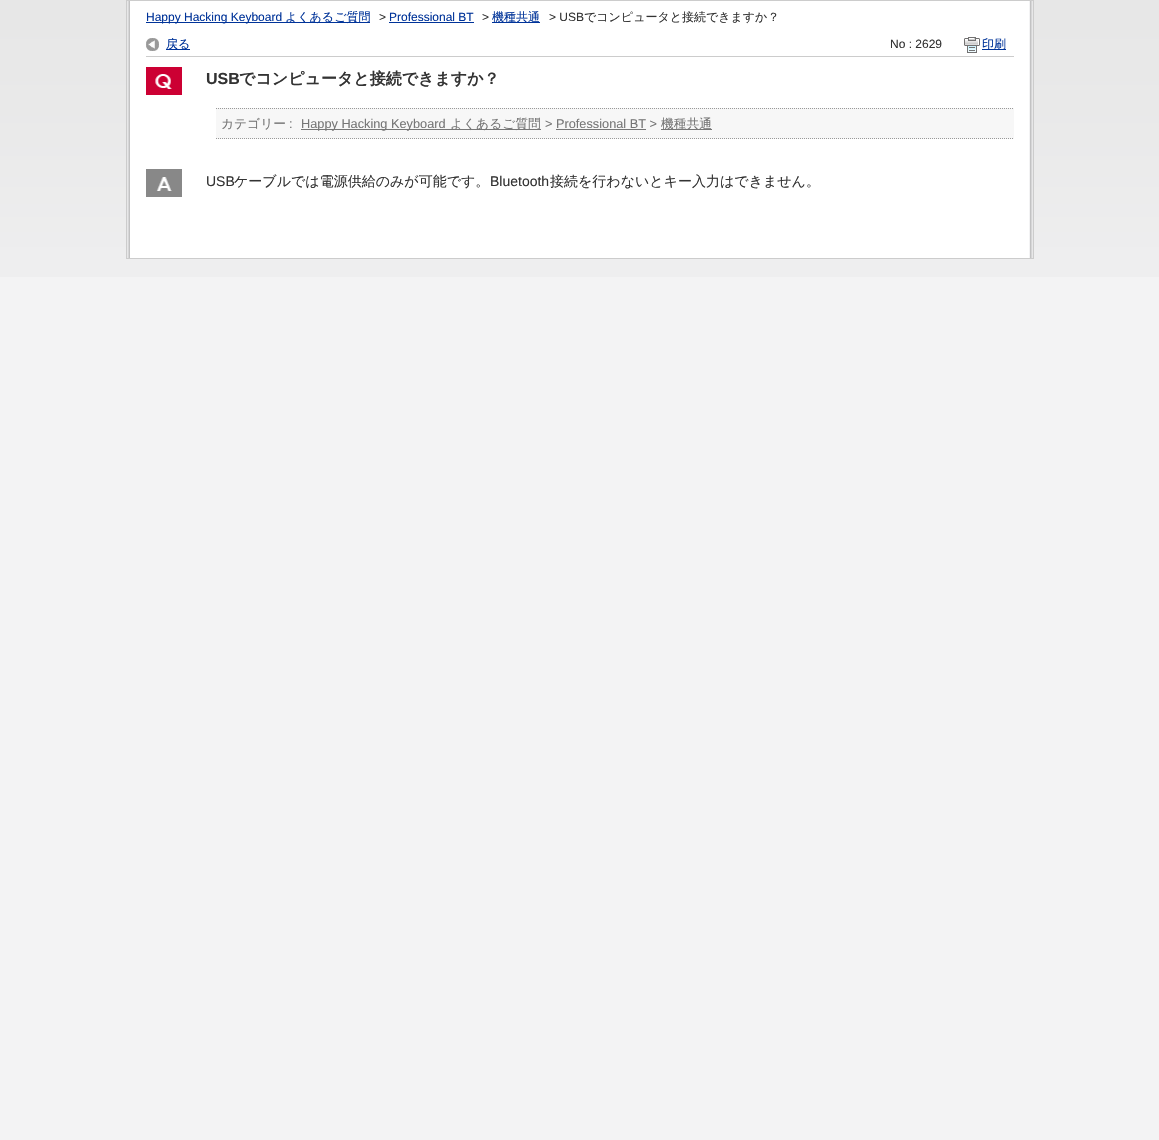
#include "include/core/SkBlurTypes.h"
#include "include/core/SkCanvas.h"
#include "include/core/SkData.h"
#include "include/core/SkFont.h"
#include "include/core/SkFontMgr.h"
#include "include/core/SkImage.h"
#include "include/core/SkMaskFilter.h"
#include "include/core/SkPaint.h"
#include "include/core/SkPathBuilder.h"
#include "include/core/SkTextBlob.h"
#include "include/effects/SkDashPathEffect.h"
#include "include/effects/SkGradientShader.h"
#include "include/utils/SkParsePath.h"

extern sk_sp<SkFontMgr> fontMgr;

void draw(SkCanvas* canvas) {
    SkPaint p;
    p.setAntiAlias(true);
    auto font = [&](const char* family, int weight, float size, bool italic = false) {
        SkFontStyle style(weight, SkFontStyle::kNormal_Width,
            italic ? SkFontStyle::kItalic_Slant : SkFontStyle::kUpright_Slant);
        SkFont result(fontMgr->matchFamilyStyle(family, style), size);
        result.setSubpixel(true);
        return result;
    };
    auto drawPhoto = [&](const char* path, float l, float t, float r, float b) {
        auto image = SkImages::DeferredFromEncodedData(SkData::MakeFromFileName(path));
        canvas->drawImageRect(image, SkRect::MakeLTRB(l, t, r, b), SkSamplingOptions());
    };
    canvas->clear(0xFFF3F3F4);
    drawPhoto("media/1.png", 0, 0, 1159, 277);
    drawPhoto("media/2.png", 127, 1, 1033, 258);
    p.setStyle(SkPaint::kStroke_Style);
    p.setStrokeWidth(1);
    p.setColor(0xFFCCCCCC);
    canvas->drawRect(SkRect::MakeLTRB(126.5f, 0.5f, 1033.5f, 258.5f), p);
    p.setStyle(SkPaint::kFill_Style);
    p.setColor(0xFF003399);
    canvas->drawRect(SkRect::MakeLTRB(146, 22, 370, 23), p);
    auto font1 = font("Liberation Sans", 400, 12);
    canvas->drawString("Happy Hacking Keyboard", 146, 21, font1, p);
    auto font2 = font("WenQuanYi Zen Hei", 500, 12);
    canvas->drawString("よくあるご質問", 285, 21, font2, p);
    p.setColor(0xFF333333);
    canvas->drawString(">", 379, 21, font1, p);
    p.setColor(0xFF003399);
    canvas->drawString("Professional BT", 389, 21, font1, p);
    canvas->drawRect(SkRect::MakeLTRB(389, 22, 474, 23), p);
    p.setColor(0xFF333333);
    canvas->drawString(">", 482, 21, font1, p);
    p.setColor(0xFF003399);
    canvas->drawRect(SkRect::MakeLTRB(492, 22, 540, 23), p);
    canvas->drawString("機種共通", 492, 21, font2, p);
    p.setColor(0xFF333333);
    canvas->drawString("> USB", 549, 21, font1, p);
    canvas->drawString("でコンピュータと接続できますか？", 584, 21, font2, p);
    p.setColor(0xFFCCCCCC);
    canvas->drawRect(SkRect::MakeLTRB(146, 56, 1014, 57), p);
    drawPhoto("media/3.png", 146, 38, 159, 51);
    p.setColor(0xFF003399);
    canvas->drawRect(SkRect::MakeLTRB(166, 49, 190, 50), p);
    canvas->drawString("戻る", 166, 48, font2, p);
    p.setColor(0xFF333333);
    canvas->drawString("No : 2629", 890, 48, font1, p);
    drawPhoto("media/4.png", 964, 37, 980, 53);
    p.setColor(0xFF003399);
    canvas->drawRect(SkRect::MakeLTRB(982, 49, 1006, 50), p);
    canvas->drawString("印刷", 982, 48, font2, p);
    drawPhoto("media/5.png", 146, 67, 182, 95);
    auto font3 = font("Liberation Sans", 700, 16);
    p.setColor(0xFF333333);
    canvas->drawString("USB", 206, 84, font3, p);
    auto font4 = font("WenQuanYi Zen Hei", 700, 16);
    canvas->drawString("でコンピュータと接続できますか？", 239, 84, font4, p);
    p.setColor(0xFFF7F7F7);
    canvas->drawRect(SkRect::MakeLTRB(216, 108, 1014, 139), p);
    p.setStyle(SkPaint::kStroke_Style);
    p.setColor(0xFF999999);
    p.setPathEffect(SkDashPathEffect::Make({{1, 1}}, 0));
    canvas->drawPath(SkPathBuilder().moveTo(216, 108.5f).lineTo(1014, 108.5f).detach(), p);
    p.setPathEffect(nullptr);
    p.setPathEffect(SkDashPathEffect::Make({{1, 1}}, 0));
    canvas->drawPath(SkPathBuilder().moveTo(216, 138.5f).lineTo(1014, 138.5f).detach(), p);
    p.setPathEffect(nullptr);
    auto font5 = font("WenQuanYi Zen Hei", 500, 12.75f);
    p.setStyle(SkPaint::kFill_Style);
    p.setColor(0xFF767676);
    canvas->drawString("カテゴリー", 221, 128, font5, p);
    auto font6 = font("Liberation Sans", 400, 12.75f);
    canvas->drawString(":", 289, 128, font6, p);
    canvas->drawRect(SkRect::MakeLTRB(301, 129, 541, 130), p);
    canvas->drawString("Happy Hacking Keyboard", 301, 128, font6, p);
    canvas->drawString("よくあるご質問", 450, 128, font5, p);
    canvas->drawString("> Professional BT >", 545, 128, font6, p);
    canvas->drawRect(SkRect::MakeLTRB(661, 129, 712, 130), p);
    canvas->drawString("機種共通", 661, 128, font5, p);
    canvas->drawRect(SkRect::MakeLTRB(556, 129, 646, 130), p);
    drawPhoto("media/6.png", 146, 169, 182, 197);
    auto font7 = font("Liberation Sans", 400, 14);
    p.setColor(0xFF333333);
    canvas->drawString("USB", 206, 186, font7, p);
    auto font8 = font("WenQuanYi Zen Hei", 500, 14);
    canvas->drawString("ケーブルでは電源供給のみが可能です。", 234, 186, font8, p);
    canvas->drawString("Bluetooth", 490, 186, font7, p);
    canvas->drawString("接続を行わないとキー入力はできません。", 550, 186, font8, p);
}
